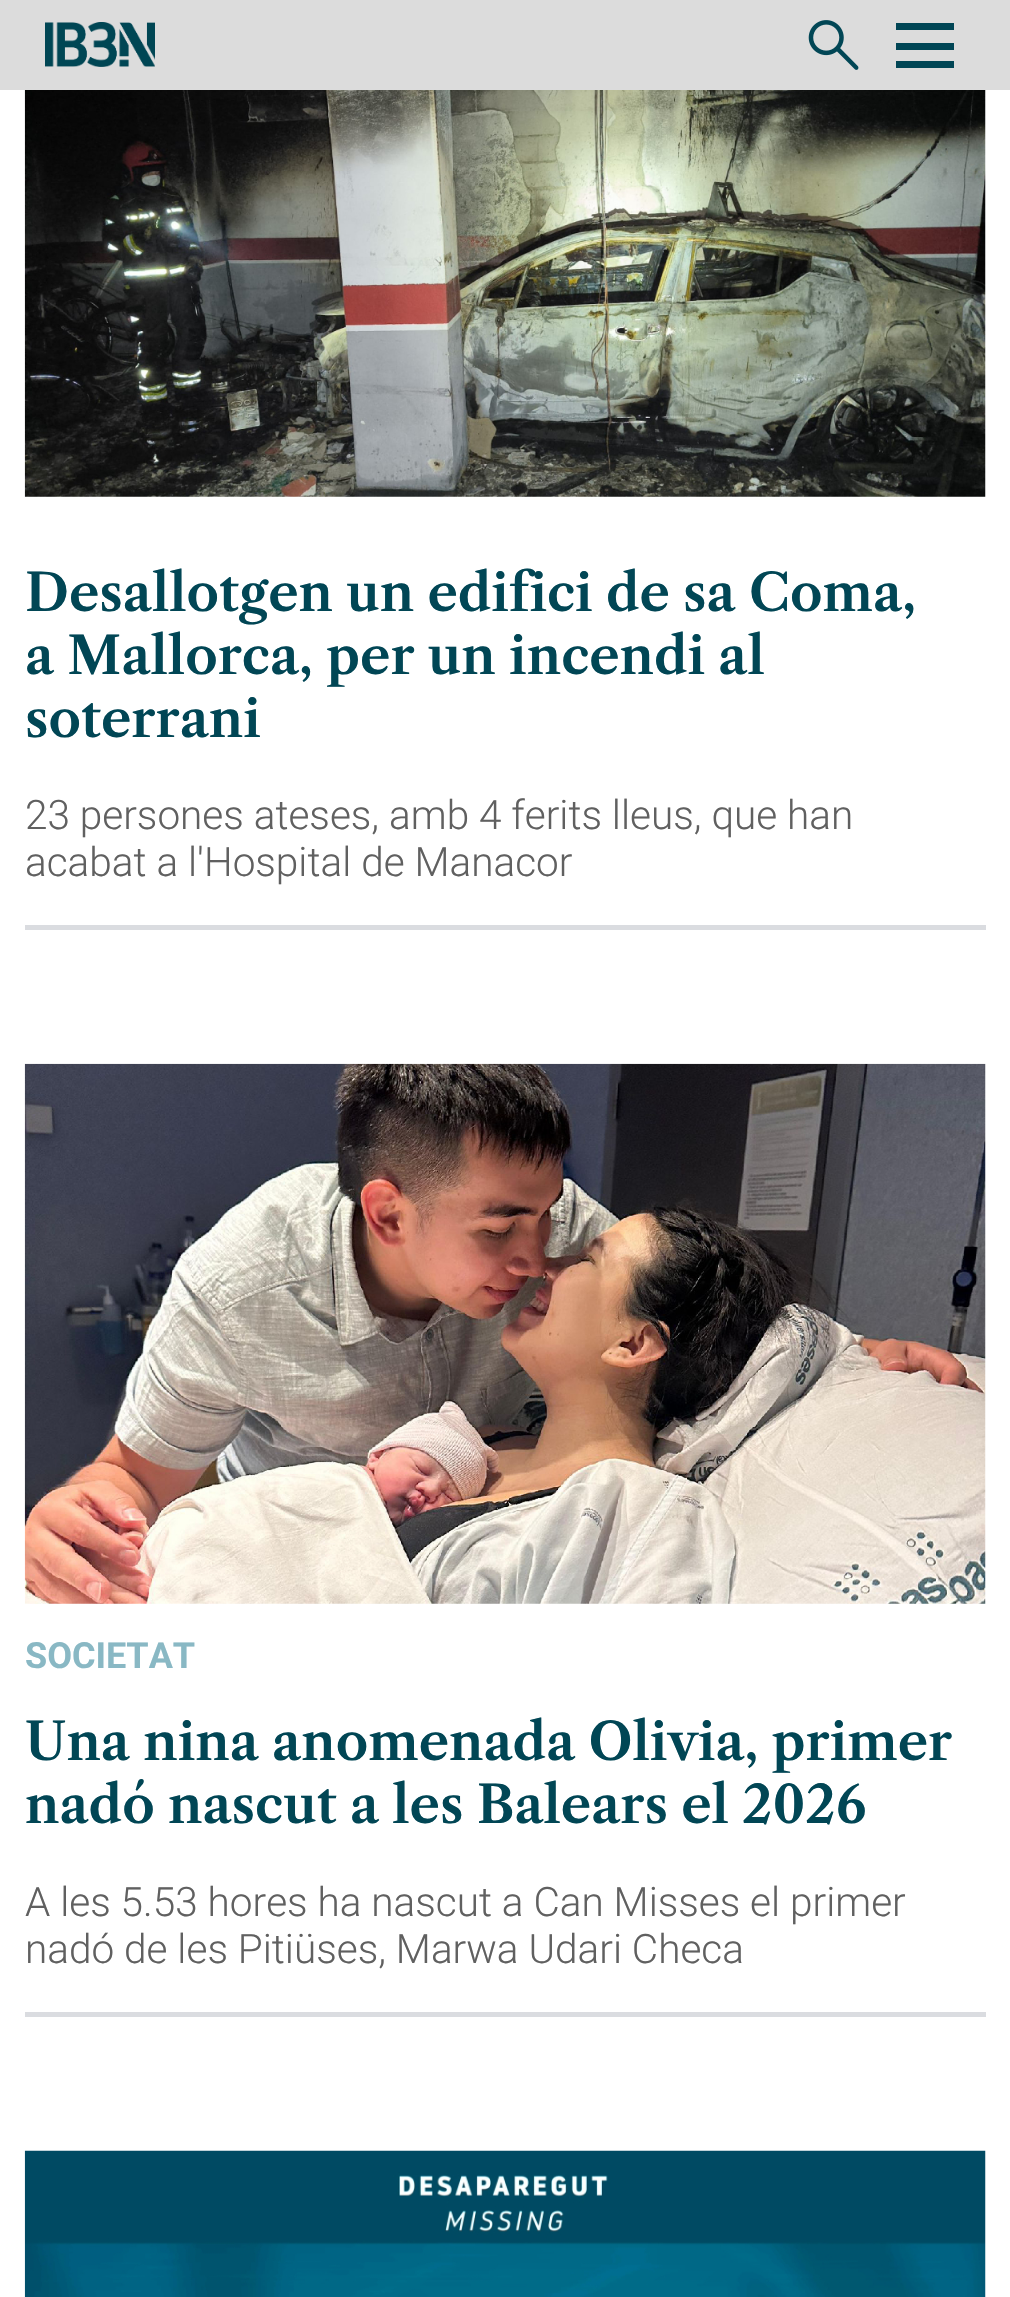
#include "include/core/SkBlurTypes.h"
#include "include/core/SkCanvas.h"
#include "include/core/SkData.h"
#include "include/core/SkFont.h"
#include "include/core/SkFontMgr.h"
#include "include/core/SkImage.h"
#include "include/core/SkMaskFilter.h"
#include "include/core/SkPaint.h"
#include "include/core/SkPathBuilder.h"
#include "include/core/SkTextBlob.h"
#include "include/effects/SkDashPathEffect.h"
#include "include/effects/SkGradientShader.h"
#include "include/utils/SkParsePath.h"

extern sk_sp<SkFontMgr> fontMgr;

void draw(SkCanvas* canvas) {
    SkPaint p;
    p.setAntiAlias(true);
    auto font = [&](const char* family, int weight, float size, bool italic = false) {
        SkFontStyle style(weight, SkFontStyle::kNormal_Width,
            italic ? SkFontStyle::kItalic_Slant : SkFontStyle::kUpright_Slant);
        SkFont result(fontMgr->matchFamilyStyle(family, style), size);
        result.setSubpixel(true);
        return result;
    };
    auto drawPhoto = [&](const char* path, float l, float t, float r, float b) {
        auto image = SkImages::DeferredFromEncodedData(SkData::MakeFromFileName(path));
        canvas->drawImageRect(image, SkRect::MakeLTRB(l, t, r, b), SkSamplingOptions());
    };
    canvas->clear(0xFFFFFFFF);
    p.setColor(0xFFDCDCDC);
    canvas->drawRect(SkRect::MakeLTRB(0, 0, 1010, 90), p);
    drawPhoto("media/1.png", 45, 22, 155, 67);
    drawPhoto("media/2.png", 808, 20, 859, 70);
    {
        const struct { float l, t, r, b; SkColor color; } items[] = {
            {896, 23, 954, 30, 0xFF014655},
            {896, 43, 954, 50, 0xFF014655},
            {896, 61, 954, 68, 0xFF014655},
            {25, 925, 986, 930, 0xFFDADCE0},
        };
        for (auto [l, t, r, b, color] : items) {
            p.setColor(color);
            canvas->drawRect(SkRect::MakeLTRB(l, t, r, b), p);
        }
    }
    drawPhoto("media/3.png", 24, 90, 986, 497);
    auto font1 = font("Libre Caslon Text", 600, 51.8f);
    p.setColor(0xFF014655);
    {
        const struct { const char* s; float x, y; } items[] = {
            {"Desallotgen un edifici de sa Coma,", 25, 611},
            {"a Mallorca, per un incendi al", 25, 674},
            {"soterrani", 25, 737},
        };
        for (auto [s, x, y] : items) {
            canvas->drawString(s, x, y, font1, p);
        }
    }
    auto font2 = font("Roboto", 300, 40.5f);
    p.setColor(0xFF606060);
    canvas->drawString("23 persones ateses, amb 4 ferits lleus, que han", 25, 829, font2, p);
    canvas->drawString("acabat a l'Hospital de Manacor", 25, 876, font2, p);
    p.setColor(0xFFDADCE0);
    canvas->drawRect(SkRect::MakeLTRB(25, 2012, 986, 2017), p);
    drawPhoto("media/4.png", 24, 1063, 986, 1604);
    auto font3 = font("Roboto", 700, 36);
    p.setColor(0xFF89B8C4);
    canvas->drawString("SOCIETAT", 25, 1668, font3, p);
    p.setColor(0xFF014655);
    canvas->drawString("Una nina anomenada Olivia, primer", 25, 1760, font1, p);
    canvas->drawString("nadó nascut a les Balears el 2026", 25, 1823, font1, p);
    p.setColor(0xFF606060);
    canvas->drawString("A les 5.53 hores ha nascut a Can Misses el primer", 25, 1916, font2, p);
    canvas->drawString("nadó de les Pitiüses, Marwa Udari Checa", 25, 1963, font2, p);
    drawPhoto("media/5.png", 24, 2150, 986, 2297);
}
